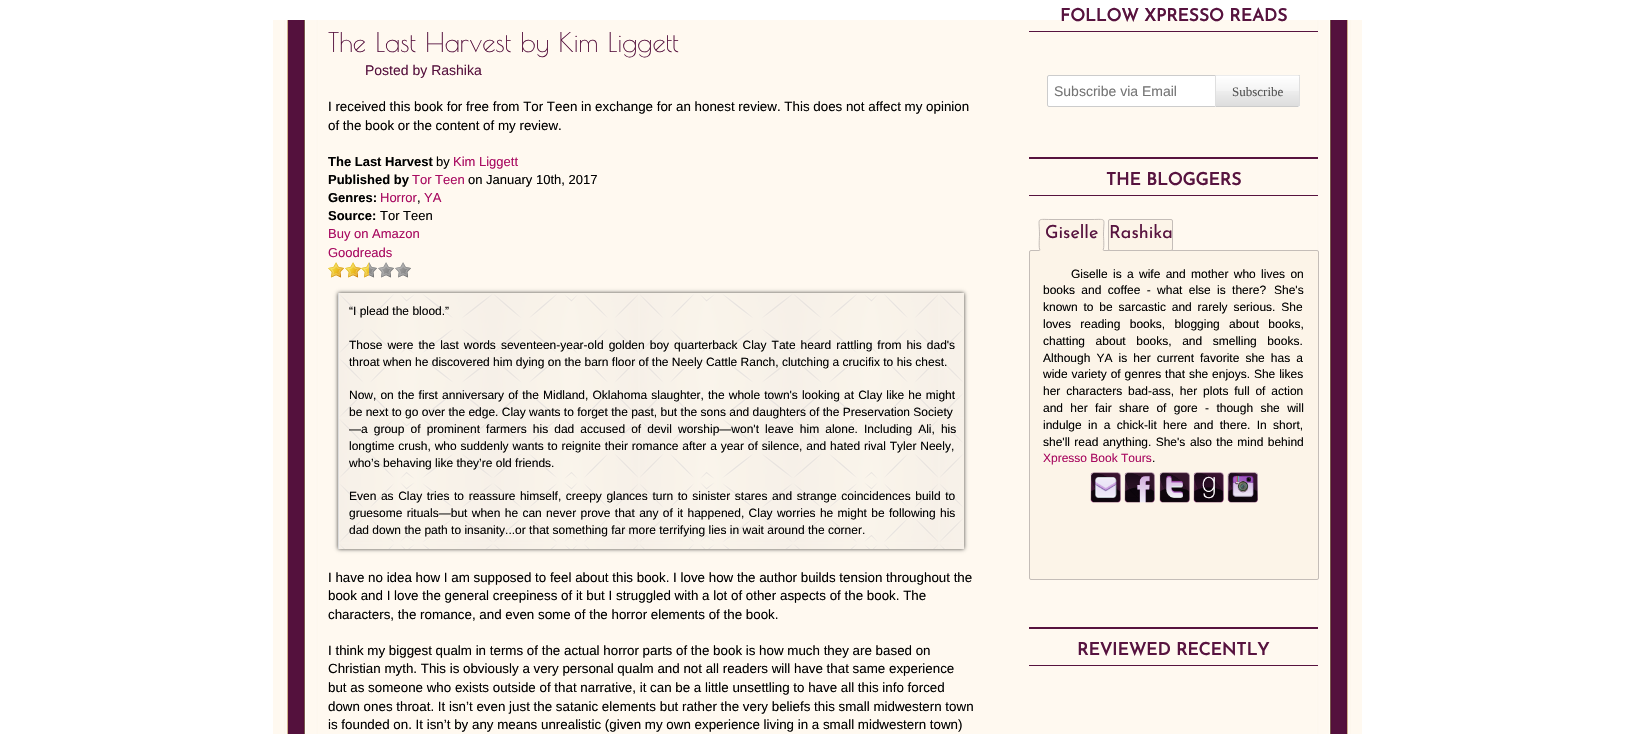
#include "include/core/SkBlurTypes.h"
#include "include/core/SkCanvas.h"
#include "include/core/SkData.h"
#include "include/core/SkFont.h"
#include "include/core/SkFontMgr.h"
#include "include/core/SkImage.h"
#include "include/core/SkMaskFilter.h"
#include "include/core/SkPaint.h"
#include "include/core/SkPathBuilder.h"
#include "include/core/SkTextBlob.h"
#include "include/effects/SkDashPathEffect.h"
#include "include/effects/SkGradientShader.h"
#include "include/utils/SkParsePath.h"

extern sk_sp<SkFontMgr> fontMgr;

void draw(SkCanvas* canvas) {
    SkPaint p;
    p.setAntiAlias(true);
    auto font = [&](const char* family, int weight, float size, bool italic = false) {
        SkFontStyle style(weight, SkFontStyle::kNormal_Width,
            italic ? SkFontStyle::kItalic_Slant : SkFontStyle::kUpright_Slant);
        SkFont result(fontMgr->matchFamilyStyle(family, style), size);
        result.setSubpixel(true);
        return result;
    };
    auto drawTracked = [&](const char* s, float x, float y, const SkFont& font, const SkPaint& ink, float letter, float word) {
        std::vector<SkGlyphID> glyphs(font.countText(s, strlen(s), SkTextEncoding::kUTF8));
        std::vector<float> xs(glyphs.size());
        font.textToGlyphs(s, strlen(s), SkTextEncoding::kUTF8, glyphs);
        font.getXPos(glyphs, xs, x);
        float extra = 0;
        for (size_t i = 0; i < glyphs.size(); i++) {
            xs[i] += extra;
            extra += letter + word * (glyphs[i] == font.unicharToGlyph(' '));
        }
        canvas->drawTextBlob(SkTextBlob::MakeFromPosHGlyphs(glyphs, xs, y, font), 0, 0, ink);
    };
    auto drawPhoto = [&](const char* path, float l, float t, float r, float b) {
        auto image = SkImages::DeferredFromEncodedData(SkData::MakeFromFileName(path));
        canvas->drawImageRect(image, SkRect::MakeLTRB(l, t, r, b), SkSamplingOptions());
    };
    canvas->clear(0xFFFFFFFF);
    drawPhoto("media/1.png", 273, 20, 1362, 734);
    auto font1 = font("Poiret One", 400, 26.7f);
    p.setColor(0xFF57133F);
    canvas->drawString("The Last Harvest by Kim Liggett", 328, 52, font1, p);
    auto font2 = font("Liberation Sans", 400, 14);
    canvas->drawString("Posted by Rashika", 365, 75, font2, p);
    auto font3 = font("Liberation Sans", 400, 13.35f);
    p.setColor(0xFF000000);
    canvas->drawString("I received this book for free from Tor Teen in exchange for an honest review. This does not affect my opinion", 328, 111, font3, p);
    canvas->drawString("of the book or the content of my review.", 328, 130, font3, p);
    auto font4 = font("Liberation Sans", 700, 13);
    canvas->drawString("The Last Harvest", 328, 166, font4, p);
    auto font5 = font("Liberation Sans", 400, 13);
    canvas->drawString("by", 436, 166, font5, p);
    p.setColor(0xFFA90B61);
    canvas->drawString("Kim Liggett", 453, 166, font5, p);
    p.setColor(0xFF000000);
    canvas->drawString("Published by", 328, 184, font4, p);
    p.setColor(0xFFA90B61);
    canvas->drawString("Tor Teen", 412, 184, font5, p);
    p.setColor(0xFF000000);
    canvas->drawString("on January 10th, 2017", 468, 184, font5, p);
    canvas->drawString("Genres:", 328, 202, font4, p);
    p.setColor(0xFFA90B61);
    canvas->drawString("Horror", 380, 202, font5, p);
    p.setColor(0xFF000000);
    canvas->drawString(",", 417, 202, font5, p);
    p.setColor(0xFFA90B61);
    canvas->drawString("YA", 424, 202, font5, p);
    p.setColor(0xFF000000);
    canvas->drawString("Source:", 328, 220, font4, p);
    canvas->drawString("Tor Teen", 380, 220, font5, p);
    p.setColor(0xFFA90B61);
    canvas->drawString("Buy on Amazon", 328, 238, font5, p);
    canvas->drawString("Goodreads", 328, 257, font5, p);
    drawPhoto("media/2.png", 328, 262, 411, 278);
    p.setColor(0xFF444340);
    p.setMaskFilter(SkMaskFilter::MakeBlur(kNormal_SkBlurStyle, 2));
    canvas->drawRect(SkRect::MakeLTRB(338, 293, 964, 549), p);
    p.setMaskFilter(nullptr);
    drawPhoto("media/3.png", 339, 293, 964, 549);
    p.setColor(0xFFDDDDDD);
    canvas->drawRect(SkRect::MakeLTRB(338, 293, 339, 549), p);
    auto font6 = font("Liberation Sans", 400, 12);
    p.setColor(0xFF000000);
    canvas->drawString("“I plead the blood.”", 349, 315, font6, p);
    drawTracked("Those were the last words seventeen-year-old golden boy quarterback Clay Tate heard rattling from his dad's", 349, 349, font6, p, 0, 1.7f);
    canvas->drawString("throat when he discovered him dying on the barn floor of the Neely Cattle Ranch, clutching a crucifix to his chest.", 349, 366, font6, p);
    drawTracked("Now, on the first anniversary of the Midland, Oklahoma slaughter, the whole town's looking at Clay like he might", 349, 399, font6, p, 0, 0.75f);
    canvas->drawString("be next to go over the edge. Clay wants to forget the past, but the sons and daughters of the Preservation Society", 349, 416, font6, p);
    drawTracked("—a group of prominent farmers his dad accused of devil worship—won't leave him alone. Including Ali, his", 349, 433, font6, p, 0, 2.75f);
    drawTracked("longtime crush, who suddenly wants to reignite their romance after a year of silence, and hated rival Tyler Neely,", 349, 450, font6, p, 0, 0.5f);
    canvas->drawString("who’s behaving like they’re old friends.", 349, 467, font6, p);
    drawTracked("Even as Clay tries to reassure himself, creepy glances turn to sinister stares and strange coincidences build to", 349, 500, font6, p, 0, 1.25f);
    drawTracked("gruesome rituals—but when he can never prove that any of it happened, Clay worries he might be following his", 349, 517, font6, p, 0, 1);
    canvas->drawString("dad down the path to insanity...or that something far more terrifying lies in wait around the corner.", 349, 534, font6, p);
    {
        const struct { const char* s; float x, y; } items[] = {
            {"I have no idea how I am supposed to feel about this book. I love how the author builds tension throughout the", 328, 582},
            {"book and I love the general creepiness of it but I struggled with a lot of other aspects of the book. The", 328, 600},
            {"characters, the romance, and even some of the horror elements of the book.", 328, 619},
            {"I think my biggest qualm in terms of the actual horror parts of the book is how much they are based on", 328, 655},
            {"Christian myth. This is obviously a very personal qualm and not all readers will have that same experience", 328, 673},
            {"but as someone who exists outside of that narrative, it can be a little unsettling to have all this info forced", 328, 692},
            {"down ones throat. It isn’t even just the satanic elements but rather the very beliefs this small midwestern town", 328, 711},
            {"is founded on. It isn’t by any means unrealistic (given my own experience living in a small midwestern town)", 328, 729},
        };
        for (auto [s, x, y] : items) {
            canvas->drawString(s, x, y, font3, p);
        }
    }
    p.setColor(0xFF57133F);
    canvas->drawRect(SkRect::MakeLTRB(1029, 31, 1318, 32), p);
    auto font7 = font("Josefin Sans", 700, 17.3f);
    canvas->drawString("FOLLOW XPRESSO READS", 1060, 21, font7, p);
    p.setColor(0xFFFFFFFF);
    canvas->drawRoundRect(SkRect::MakeLTRB(1047.5f, 75.5f, 1216.5f, 106.5f), 1.5f, 1.5f, p);
    p.setStyle(SkPaint::kStroke_Style);
    p.setStrokeWidth(1);
    p.setColor(0xFFCCCCCC);
    canvas->drawRoundRect(SkRect::MakeLTRB(1047.5f, 75.5f, 1216.5f, 106.5f), 1.5f, 1.5f, p);
    p.setStyle(SkPaint::kFill_Style);
    p.setColor(0xFF757575);
    canvas->drawString("Subscribe via Email", 1054, 96, font2, p);
    {
        const SkColor colors[] = {0xFFFFFFFF, 0xFFF3F3F3, 0xFFEDEDED, 0xFFDDDDDD};
        const float stops[] = {0, 0.5f, 0.51f, 1};
        const SkPoint ends[] = {{1258, 46}, {1258, 76}};
        p.setShader(SkGradientShader::MakeLinear(ends, colors, stops, 4, SkTileMode::kClamp));
        p.setAlpha(255);
    }
    canvas->drawRect(SkRect::MakeLTRB(1215, 75, 1300, 76), p);
    {
        const SkColor colors[] = {0xFFFFFFFF, 0xFFF3F3F3, 0xFFEDEDED, 0xFFDDDDDD};
        const float stops[] = {0, 0.5f, 0.51f, 1};
        const SkPoint ends[] = {{1258, 76}, {1258, 106}};
        p.setShader(SkGradientShader::MakeLinear(ends, colors, stops, 4, SkTileMode::kClamp));
        p.setAlpha(255);
    }
    canvas->drawRect(SkRect::MakeLTRB(1216, 76, 1300, 106), p);
    {
        const SkColor colors[] = {0xFFFFFFFF, 0xFFF3F3F3, 0xFFEDEDED, 0xFFDDDDDD};
        const float stops[] = {0, 0.5f, 0.51f, 1};
        const SkPoint ends[] = {{1258, 106}, {1258, 136}};
        p.setShader(SkGradientShader::MakeLinear(ends, colors, stops, 4, SkTileMode::kClamp));
        p.setAlpha(255);
    }
    canvas->drawRect(SkRect::MakeLTRB(1215, 106, 1300, 107), p);
    p.setShader(nullptr);
    p.setColor(0xFFECECEC);
    canvas->drawPath(SkPathBuilder().moveTo(1215, 75).lineTo(1216, 76).lineTo(1299, 76).lineTo(1298, 75).close().detach(), p);
    p.setColor(0xFFDFDFDF);
    canvas->drawPath(SkPathBuilder().moveTo(1300, 105).lineTo(1300, 77).lineTo(1299.5f, 75.5f).lineTo(1299, 76).lineTo(1299, 106).lineTo(1299.5f, 106.5f).close().detach(), p);
    p.setColor(0xFFCBCBCB);
    canvas->drawPath(SkPathBuilder().moveTo(1298, 107).lineTo(1299, 106).lineTo(1216, 106).lineTo(1215, 107).close().detach(), p);
    p.setColor(0xFFDFDFDF);
    canvas->drawPath(SkPathBuilder().moveTo(1215, 75).lineTo(1215, 107).lineTo(1216, 106).lineTo(1216, 76).close().detach(), p);
    auto font8 = font("Liberation Serif", 400, 13);
    p.setColor(0xFF555555);
    canvas->drawString("Subscribe", 1232, 96, font8, p);
    p.setColor(0xFF57133F);
    canvas->drawRect(SkRect::MakeLTRB(1029, 157, 1318, 159), p);
    canvas->drawRect(SkRect::MakeLTRB(1029, 195, 1318, 196), p);
    canvas->drawString("THE BLOGGERS", 1106, 185, font7, p);
    p.setColor(0xFFFCF4E8);
    canvas->drawRoundRect(SkRect::MakeLTRB(1029.5f, 250.5f, 1318.5f, 579.5f), 1.5f, 1.5f, p);
    p.setStyle(SkPaint::kStroke_Style);
    p.setColor(0xFFC4BDB8);
    canvas->drawRoundRect(SkRect::MakeLTRB(1029.5f, 250.5f, 1318.5f, 579.5f), 1.5f, 1.5f, p);
    p.setStyle(SkPaint::kFill_Style);
    p.setColor(0xFFFCF4E8);
    canvas->drawRoundRect(SkRect::MakeLTRB(1039, 219, 1104, 251), 2, 2, p);
    p.setStyle(SkPaint::kStroke_Style);
    canvas->drawPath(SkPathBuilder().moveTo(1103, 250).cubicTo(1100.5f, 252.5f, 1095.5f, 250.5f, 1092, 250.5f).lineTo(1040, 250).detach(), p);
    p.setColor(0xFFC4BDB8);
    canvas->drawPath(SkPathBuilder().moveTo(1040, 250).cubicTo(1038.5f, 248.5f, 1039.5f, 237.5f, 1039.5f, 235).cubicTo(1039.5f, 217, 1035.5f, 219.5f, 1051, 219.5f).lineTo(1092, 219.5f).cubicTo(1107.5f, 219.5f, 1103.5f, 217, 1103.5f, 235).cubicTo(1103.5f, 237.5f, 1104.5f, 248.5f, 1103, 250).detach(), p);
    auto font9 = font("Josefin Sans", 100, 18);
    p.setStyle(SkPaint::kFill_Style);
    p.setColor(0xFF57133F);
    canvas->drawString("Giselle", 1045, 238, font9, p);
    p.setColor(0xFFFCF4E8);
    canvas->drawRoundRect(SkRect::MakeLTRB(1108.5f, 219.5f, 1172.5f, 250.5f), 1.5f, 1.5f, p);
    p.setStyle(SkPaint::kStroke_Style);
    p.setColor(0xFFC4BDB8);
    canvas->drawRoundRect(SkRect::MakeLTRB(1108.5f, 219.5f, 1172.5f, 250.5f), 1.5f, 1.5f, p);
    p.setStyle(SkPaint::kFill_Style);
    p.setColor(0xFF57133F);
    canvas->drawString("Rashika", 1109, 238, font9, p);
    p.setColor(0xFF000000);
    drawTracked("Giselle is a wife and mother who lives on", 1071, 278, font6, p, 0, 2);
    drawTracked("books and coffee - what else is there?", 1043, 294, font6, p, 0, 3);
    canvas->drawString("She's", 1274, 294, font6, p);
    drawTracked("known to be sarcastic and rarely serious. She", 1043, 311, font6, p, 0, 2.5f);
    drawTracked("loves reading books, blogging", 1043, 328, font6, p, 0, 6);
    drawTracked("about books,", 1229, 328, font6, p, 0, 6);
    drawTracked("chatting about books, and smelling books.", 1043, 345, font6, p, 0, 7.25f);
    drawTracked("Although YA is her current", 1043, 362, font6, p, 0, 2.75f);
    drawTracked("favorite she has a", 1200, 362, font6, p, 0, 2.75f);
    drawTracked("wide variety of genres that she enjoys. She likes", 1043, 378, font6, p, 0, 0.5f);
    drawTracked("her characters", 1043, 395, font6, p, 0, 2.5f);
    drawTracked("bad-ass, her plots full of action", 1128, 395, font6, p, 0, 2.5f);
    drawTracked("and her fair share of gore - though she will", 1043, 412, font6, p, 0, 4);
    drawTracked("indulge in a chick-lit here and there. In short,", 1043, 429, font6, p, 0, 3);
    drawTracked("she'll read anything. She's", 1043, 446, font6, p, 0, 1);
    drawTracked("also the mind behind", 1190, 446, font6, p, 0, 1);
    p.setColor(0xFFA90B61);
    canvas->drawString("Xpresso Book Tours", 1043, 462, font6, p);
    p.setColor(0xFF000000);
    canvas->drawString(".", 1152, 462, font6, p);
    drawPhoto("media/4.png", 1090, 472, 1121, 503);
    drawPhoto("media/5.png", 1124, 472, 1155, 503);
    drawPhoto("media/6.png", 1159, 472, 1190, 503);
    drawPhoto("media/7.png", 1193, 472, 1224, 503);
    drawPhoto("media/8.png", 1227, 472, 1258, 503);
    p.setColor(0xFF57133F);
    canvas->drawRect(SkRect::MakeLTRB(1029, 627, 1318, 629), p);
    canvas->drawRect(SkRect::MakeLTRB(1029, 665, 1318, 666), p);
    canvas->drawString("REVIEWED RECENTLY", 1077, 655, font7, p);
}
